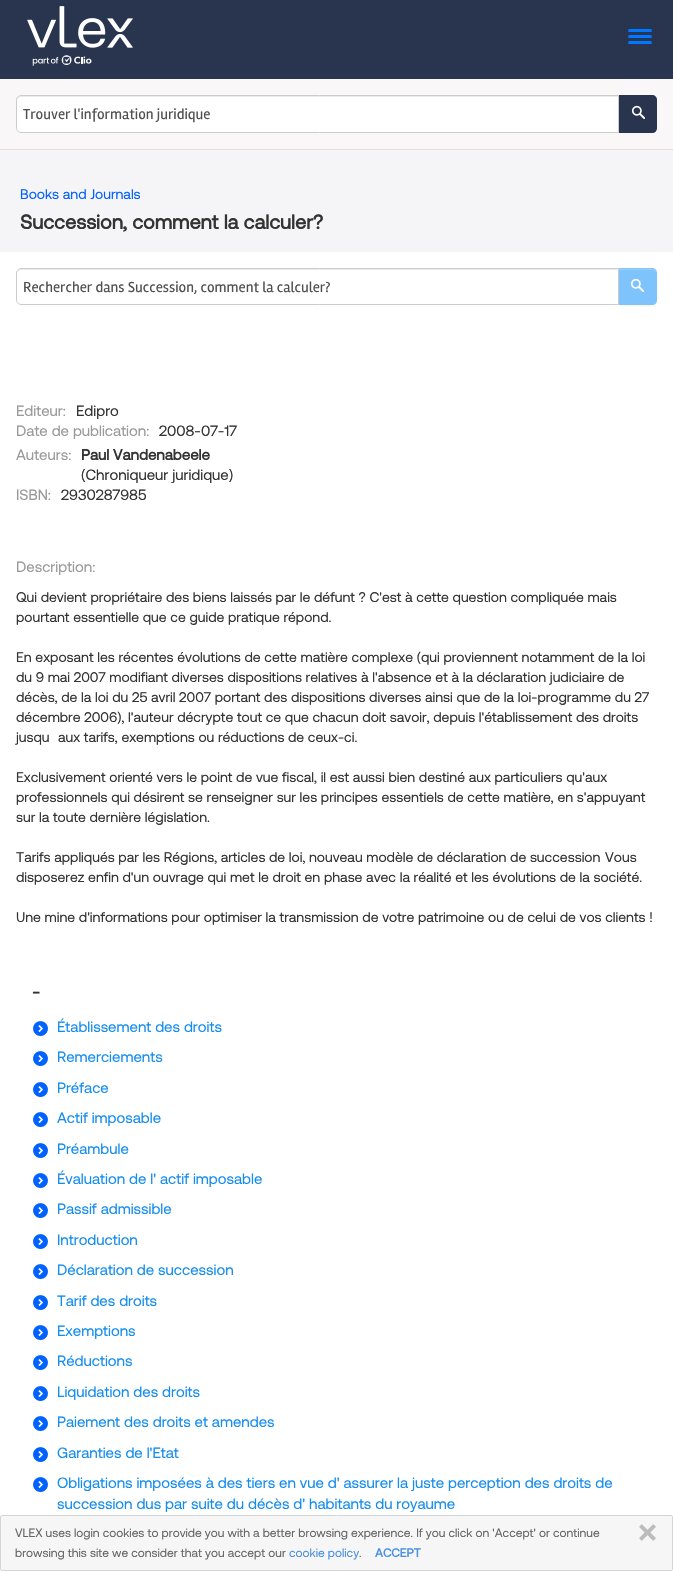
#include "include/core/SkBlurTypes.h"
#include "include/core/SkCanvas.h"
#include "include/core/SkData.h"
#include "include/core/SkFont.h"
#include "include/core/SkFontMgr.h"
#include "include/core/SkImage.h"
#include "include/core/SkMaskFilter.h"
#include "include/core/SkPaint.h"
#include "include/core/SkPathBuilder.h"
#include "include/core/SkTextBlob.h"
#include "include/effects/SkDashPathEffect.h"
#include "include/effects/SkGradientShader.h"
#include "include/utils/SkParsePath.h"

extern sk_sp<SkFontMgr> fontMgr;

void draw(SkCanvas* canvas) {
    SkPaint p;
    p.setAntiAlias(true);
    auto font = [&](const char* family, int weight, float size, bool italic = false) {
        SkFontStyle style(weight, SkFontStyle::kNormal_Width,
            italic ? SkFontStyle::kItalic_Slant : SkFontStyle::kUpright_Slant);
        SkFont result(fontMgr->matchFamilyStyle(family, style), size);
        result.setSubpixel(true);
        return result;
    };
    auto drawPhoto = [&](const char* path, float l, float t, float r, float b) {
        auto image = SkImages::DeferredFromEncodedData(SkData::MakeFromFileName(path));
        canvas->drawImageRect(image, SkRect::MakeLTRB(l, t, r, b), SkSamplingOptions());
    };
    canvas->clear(0xFFF5F5F7);
    p.setColor(0xFF29354E);
    canvas->drawRect(SkRect::MakeLTRB(0, 0, 673, 79), p);
    drawPhoto("media/1.png", 27, 6, 133, 66);
    p.setColor(0xFF0077FF);
    canvas->drawRoundRect(SkRect::MakeLTRB(628, 35, 652, 38), 1.5f, 1.5f, p);
    canvas->drawRoundRect(SkRect::MakeLTRB(628, 29, 652, 32), 1.5f, 1.5f, p);
    canvas->drawRoundRect(SkRect::MakeLTRB(628, 41, 652, 44), 1.5f, 1.5f, p);
    p.setColor(0xFFF9F7F7);
    canvas->drawRect(SkRect::MakeLTRB(0, 79, 673, 149), p);
    p.setColor(0xFFE1E1E1);
    canvas->drawRect(SkRect::MakeLTRB(0, 149, 673, 150), p);
    p.setColor(0xFFFFFFFF);
    canvas->drawPath(SkPathBuilder().moveTo(21, 95).lineTo(619, 95).lineTo(619, 133).lineTo(21, 133).cubicTo(18, 133, 16, 131, 16, 128).lineTo(16, 100).cubicTo(16, 97, 18, 95, 21, 95).close().detach(), p);
    p.setColor(0xFFECECEC);
    canvas->drawPath(SkPathBuilder().moveTo(21, 97).lineTo(618, 97).lineTo(618, 96).lineTo(21, 96).cubicTo(18, 96, 17, 98, 17, 101).cubicTo(17, 99, 19, 97, 21, 97).close().detach(), p);
    p.setStyle(SkPaint::kStroke_Style);
    p.setStrokeWidth(1);
    p.setColor(0xFFCCCCCC);
    canvas->drawPath(SkPathBuilder().moveTo(21, 95.5f).lineTo(618.5f, 95.5f).lineTo(618.5f, 132.5f).lineTo(21, 132.5f).cubicTo(18.5f, 132.5f, 16.5f, 130.5f, 16.5f, 128).lineTo(16.5f, 100).cubicTo(16.5f, 97.5f, 18.5f, 95.5f, 21, 95.5f).close().detach(), p);
    auto font1 = font("Rambla", 400, 15);
    p.setStyle(SkPaint::kFill_Style);
    p.setColor(0xFF505050);
    canvas->drawString("Trouver l'information juridique", 23, 119, font1, p);
    p.setColor(0xFF29354E);
    canvas->drawPath(SkPathBuilder().moveTo(619, 95).lineTo(652, 95).cubicTo(655, 95, 657, 97, 657, 100).lineTo(657, 128).cubicTo(657, 131, 655, 133, 652, 133).lineTo(619, 133).close().detach(), p);
    drawPhoto("media/2.png", 631, 105, 645, 119);
    auto font2 = font("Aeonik", 400, 14);
    p.setColor(0xFF0161FF);
    canvas->drawString("Books and Journals", 20, 199, font2, p);
    auto font3 = font("Aeonik", 700, 20);
    p.setColor(0xFF333333);
    canvas->drawString("Succession, comment la calculer?", 20, 229, font3, p);
    p.setColor(0xFFFFFFFF);
    canvas->drawRect(SkRect::MakeLTRB(0, 252, 673, 1571), p);
    p.setColor(0x0D000000);
    p.setMaskFilter(SkMaskFilter::MakeBlur(kNormal_SkBlurStyle, 1));
    canvas->drawRoundRect(SkRect::MakeLTRB(618, 269, 657, 306), 5, 5, p);
    p.setMaskFilter(nullptr);
    p.setColor(0xFF7EC3FC);
    canvas->drawPath(SkPathBuilder().moveTo(618, 268).lineTo(652, 268).cubicTo(655, 268, 657, 270, 657, 273).lineTo(657, 300).cubicTo(657, 303, 655, 305, 652, 305).lineTo(618, 305).close().detach(), p);
    p.setColor(0x33FFFFFF);
    canvas->drawPath(SkPathBuilder().moveTo(618, 270).lineTo(652, 270).cubicTo(655, 270, 657, 272, 657, 274).lineTo(657, 273).cubicTo(657, 271, 655, 269, 652, 269).lineTo(618, 269).close().detach(), p);
    p.setColor(0x1AA8CBFF);
    canvas->drawPath(SkPathBuilder().moveTo(618, 268).lineTo(618, 269).lineTo(652, 269).cubicTo(655, 269, 657, 271, 657, 273).cubicTo(657, 270, 655, 268, 652, 268).close().detach(), p);
    p.setColor(0x1AA4BDDB);
    canvas->drawPath(SkPathBuilder().moveTo(652, 305).cubicTo(655, 305, 657, 303, 657, 300).cubicTo(657, 302, 655, 304, 652, 304).lineTo(618, 304).lineTo(618, 305).close().detach(), p);
    p.setColor(0xFFFFFFFF);
    canvas->drawPath(SkPathBuilder().moveTo(21, 268).lineTo(619, 268).lineTo(619, 305).lineTo(21, 305).cubicTo(18, 305, 16, 303, 16, 300).lineTo(16, 273).cubicTo(16, 270, 18, 268, 21, 268).close().detach(), p);
    p.setColor(0xFFECECEC);
    canvas->drawPath(SkPathBuilder().moveTo(21, 270).lineTo(618, 270).lineTo(618, 269).lineTo(21, 269).cubicTo(18, 269, 17, 271, 17, 274).cubicTo(17, 272, 19, 270, 21, 270).close().detach(), p);
    p.setStyle(SkPaint::kStroke_Style);
    p.setColor(0xFFCCCCCC);
    canvas->drawPath(SkPathBuilder().moveTo(21, 268.5f).lineTo(618.5f, 268.5f).lineTo(618.5f, 304.5f).lineTo(21, 304.5f).cubicTo(18.5f, 304.5f, 16.5f, 302.5f, 16.5f, 300).lineTo(16.5f, 273).cubicTo(16.5f, 270.5f, 18.5f, 268.5f, 21, 268.5f).close().detach(), p);
    p.setStyle(SkPaint::kFill_Style);
    p.setColor(0xFF505050);
    canvas->drawString("Rechercher dans Succession, comment la calculer?", 23, 292, font1, p);
    drawPhoto("media/3.png", 630, 278, 644, 292);
    auto font4 = font("Aeonik", 400, 15);
    p.setColor(0xFF999999);
    canvas->drawString("Editeur:", 16, 416, font4, p);
    p.setColor(0xFF333333);
    canvas->drawString("Edipro", 76, 416, font4, p);
    p.setColor(0xFF999999);
    canvas->drawString("Date de publication:", 16, 436, font4, p);
    p.setColor(0xFF333333);
    canvas->drawString("2008-07-17", 159, 436, font4, p);
    p.setColor(0xFF999999);
    canvas->drawString("Auteurs:", 16, 460, font4, p);
    auto font5 = font("Aeonik", 700, 15);
    p.setColor(0xFF333333);
    canvas->drawString("Paul Vandenabeele", 81, 460, font5, p);
    canvas->drawString("(Chroniqueur juridique)", 81, 480, font4, p);
    p.setColor(0xFF999999);
    canvas->drawString("ISBN:", 16, 500, font4, p);
    p.setColor(0xFF333333);
    canvas->drawString("2930287985", 61, 500, font4, p);
    p.setColor(0xFF999999);
    canvas->drawString("Description:", 16, 572, font4, p);
    p.setColor(0xFF333333);
    {
        const struct { const char* s; float x, y; } items[] = {
            {"Qui devient propriétaire des biens laissés par le défunt ? C'est à cette question compliquée mais", 16, 602},
            {"pourtant essentielle que ce guide pratique répond.", 16, 622},
            {"En exposant les récentes évolutions de cette matière complexe (qui proviennent notamment de la loi", 16, 662},
            {"du 9 mai 2007 modifiant diverses dispositions relatives à l'absence et à la déclaration judiciaire de", 16, 682},
            {"décès, de la loi du 25 avril 2007 portant des dispositions diverses ainsi que de la loi-programme du 27", 16, 702},
            {"décembre 2006), l'auteur décrypte tout ce que chacun doit savoir, depuis l'établissement des droits", 16, 722},
            {"jusqu", 16, 742},
            {"aux tarifs, exemptions ou réductions de ceux-ci.", 58, 742},
            {"Exclusivement orienté vers le point de vue fiscal, il est aussi bien destiné aux particuliers qu'aux", 16, 782},
            {"professionnels qui désirent se renseigner sur les principes essentiels de cette matière, en s'appuyant", 16, 802},
            {"sur la toute dernière législation.", 16, 822},
            {"Tarifs appliqués par les Régions, articles de loi, nouveau modèle de déclaration de succession", 16, 862},
            {"Vous", 605, 862},
            {"disposerez enfin d'un ouvrage qui met le droit en phase avec la réalité et les évolutions de la société.", 16, 882},
            {"Une mine d'informations pour optimiser la transmission de votre patrimoine ou de celui de vos clients !", 16, 922},
        };
        for (auto [s, x, y] : items) {
            canvas->drawString(s, x, y, font2, p);
        }
    }
    auto font6 = font("Aeonik", 700, 18);
    canvas->drawString("-", 32, 998, font6, p);
    drawPhoto("media/4.png", 33, 1021, 48, 1036);
    p.setColor(0xFF138DF0);
    canvas->drawString("Établissement des droits", 57, 1032, font4, p);
    drawPhoto("media/4.png", 33, 1051, 48, 1066);
    canvas->drawString("Remerciements", 57, 1062, font4, p);
    drawPhoto("media/4.png", 33, 1082, 48, 1097);
    canvas->drawString("Préface", 57, 1093, font4, p);
    drawPhoto("media/4.png", 33, 1112, 48, 1127);
    canvas->drawString("Actif imposable", 57, 1123, font4, p);
    drawPhoto("media/4.png", 33, 1143, 48, 1158);
    canvas->drawString("Préambule", 57, 1154, font4, p);
    drawPhoto("media/4.png", 33, 1173, 48, 1188);
    canvas->drawString("Évaluation de l' actif imposable", 57, 1184, font4, p);
    drawPhoto("media/4.png", 33, 1203, 48, 1218);
    canvas->drawString("Passif admissible", 57, 1214, font4, p);
    drawPhoto("media/4.png", 33, 1234, 48, 1249);
    canvas->drawString("Introduction", 57, 1245, font4, p);
    drawPhoto("media/4.png", 33, 1264, 48, 1279);
    canvas->drawString("Déclaration de succession", 57, 1275, font4, p);
    drawPhoto("media/4.png", 33, 1295, 48, 1310);
    canvas->drawString("Tarif des droits", 57, 1306, font4, p);
    drawPhoto("media/4.png", 33, 1325, 48, 1340);
    canvas->drawString("Exemptions", 57, 1336, font4, p);
    drawPhoto("media/4.png", 33, 1355, 48, 1370);
    canvas->drawString("Réductions", 57, 1366, font4, p);
    drawPhoto("media/4.png", 33, 1386, 48, 1401);
    canvas->drawString("Liquidation des droits", 57, 1397, font4, p);
    drawPhoto("media/4.png", 33, 1416, 48, 1431);
    canvas->drawString("Paiement des droits et amendes", 57, 1427, font4, p);
    drawPhoto("media/4.png", 33, 1447, 48, 1462);
    canvas->drawString("Garanties de l'Etat", 57, 1458, font4, p);
    drawPhoto("media/4.png", 33, 1477, 48, 1492);
    canvas->drawString("Obligations imposées à des tiers en vue d' assurer la juste perception des droits de", 57, 1488, font4, p);
    canvas->drawString("succession dus par suite du décès d' habitants du royaume", 57, 1509, font4, p);
    p.setColor(0xFFF6F6F6);
    canvas->drawRoundRect(SkRect::MakeLTRB(0.5f, 1515.5f, 672.5f, 1570.5f), 1.5f, 1.5f, p);
    p.setStyle(SkPaint::kStroke_Style);
    p.setColor(0xFFD5D5D5);
    canvas->drawRoundRect(SkRect::MakeLTRB(0.5f, 1515.5f, 672.5f, 1570.5f), 1.5f, 1.5f, p);
    auto font7 = font("Aeonik", 400, 12);
    p.setStyle(SkPaint::kFill_Style);
    p.setColor(0xFF666666);
    canvas->drawString("VLEX uses login cookies to provide you with a better browsing experience. If you click on 'Accept' or continue", 15, 1537, font7, p);
    canvas->drawString("browsing this site we consider that you accept our", 15, 1557, font7, p);
    p.setColor(0xFF4A90E2);
    canvas->drawString("cookie policy", 289, 1557, font7, p);
    p.setColor(0xFF666666);
    canvas->drawString(".", 359, 1557, font7, p);
    auto font8 = font("Aeonik", 700, 12);
    p.setColor(0xFF4A90E2);
    canvas->drawString("ACCEPT", 375, 1557, font8, p);
    drawPhoto("media/5.png", 639, 1524, 656, 1541);
}
